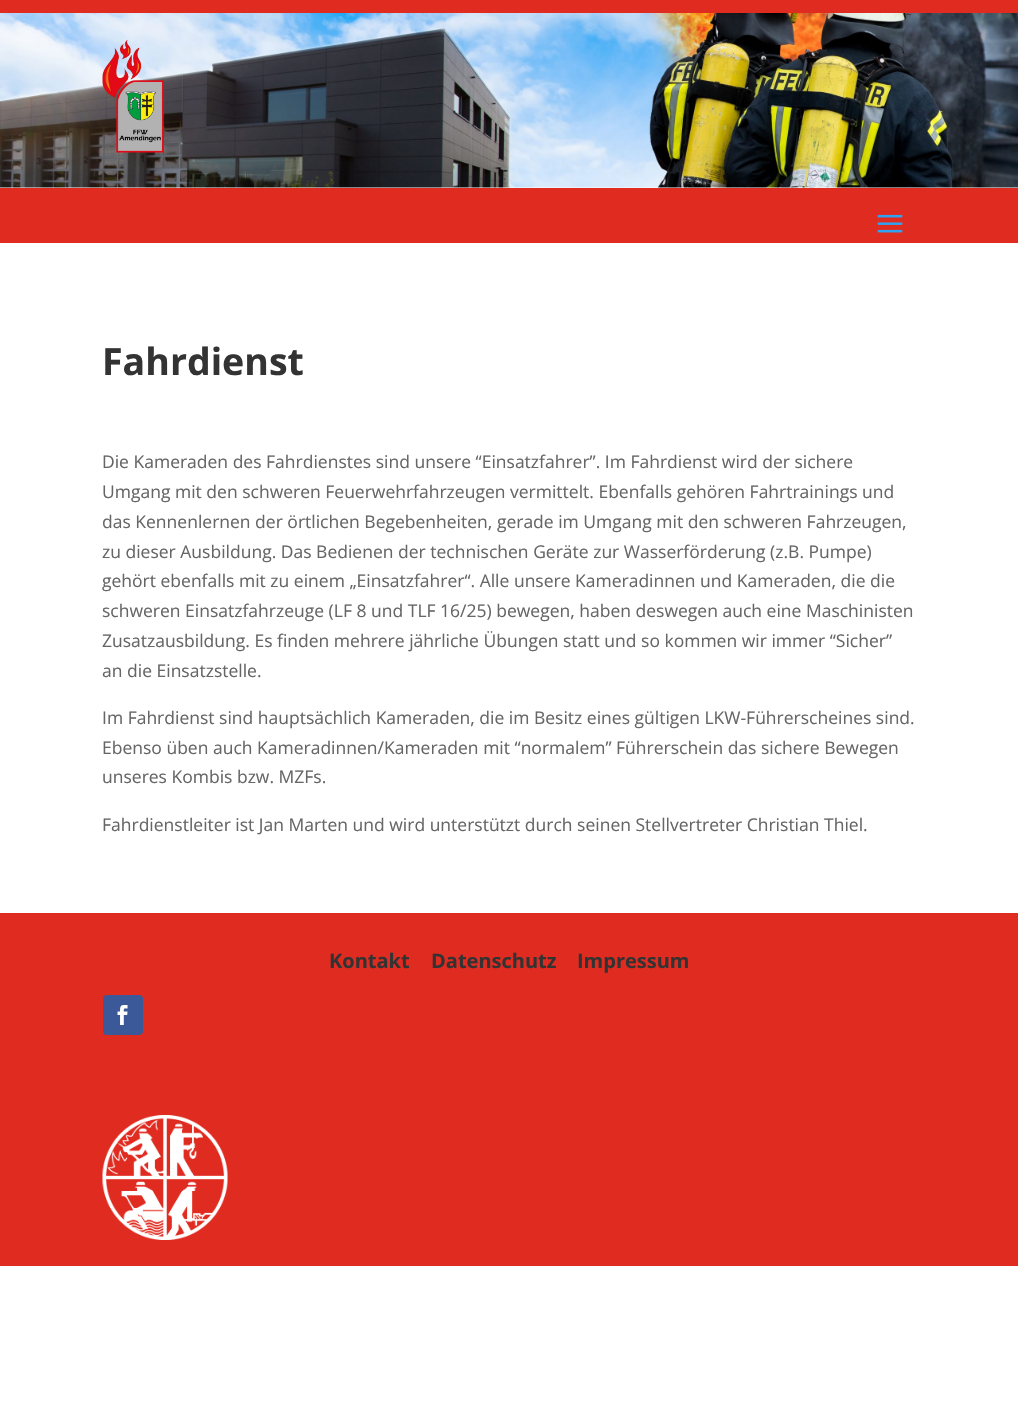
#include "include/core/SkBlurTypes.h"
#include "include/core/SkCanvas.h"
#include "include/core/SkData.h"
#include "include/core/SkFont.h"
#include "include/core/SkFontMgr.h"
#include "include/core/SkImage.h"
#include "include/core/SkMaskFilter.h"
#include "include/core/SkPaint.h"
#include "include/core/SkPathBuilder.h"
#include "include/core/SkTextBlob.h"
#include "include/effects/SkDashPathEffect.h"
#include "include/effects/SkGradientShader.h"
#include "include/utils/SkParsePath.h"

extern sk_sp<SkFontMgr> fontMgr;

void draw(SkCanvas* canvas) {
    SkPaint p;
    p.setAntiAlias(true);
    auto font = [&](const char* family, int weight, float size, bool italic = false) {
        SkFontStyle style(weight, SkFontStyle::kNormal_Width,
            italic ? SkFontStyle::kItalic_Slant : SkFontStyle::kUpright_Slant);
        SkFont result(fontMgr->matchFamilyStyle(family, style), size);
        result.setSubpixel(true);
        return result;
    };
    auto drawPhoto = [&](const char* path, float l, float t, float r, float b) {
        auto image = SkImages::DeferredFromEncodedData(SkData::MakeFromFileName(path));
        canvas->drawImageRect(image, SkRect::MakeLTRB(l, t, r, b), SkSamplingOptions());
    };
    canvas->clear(0xFFFFFFFF);
    drawPhoto("media/1.png", 0, 13, 1018, 188);
    p.setColor(0xFFE02B20);
    canvas->drawRect(SkRect::MakeLTRB(0, 0, 1018, 13), p);
    drawPhoto("media/2.png", 102, 40, 164, 153);
    canvas->drawRect(SkRect::MakeLTRB(0, 188, 1018, 243), p);
    drawPhoto("media/3.png", 877, 214, 903, 233);
    auto font1 = font("Open Sans", 700, 37.5f);
    p.setColor(0xFF333333);
    canvas->drawString("Fahrdienst", 102, 375, font1, p);
    auto font2 = font("Open Sans", 400, 17.5f);
    p.setColor(0xFF666666);
    {
        const struct { const char* s; float x, y; } items[] = {
            {"Die Kameraden des Fahrdienstes sind unsere “Einsatzfahrer”. Im Fahrdienst wird der sichere", 102, 468},
            {"Umgang mit den schweren Feuerwehrfahrzeugen vermittelt. Ebenfalls gehören Fahrtrainings und", 102, 498},
            {"das Kennenlernen der örtlichen Begebenheiten, gerade im Umgang mit den schweren Fahrzeugen,", 102, 528},
            {"zu dieser Ausbildung. Das Bedienen der technischen Geräte zur Wasserförderung (z.B. Pumpe)", 102, 558},
            {"gehört ebenfalls mit zu einem „Einsatzfahrer“. Alle unsere Kameradinnen und Kameraden, die die", 102, 587},
            {"schweren Einsatzfahrzeuge (LF 8 und TLF 16/25) bewegen, haben deswegen auch eine Maschinisten", 102, 617},
            {"Zusatzausbildung. Es finden mehrere jährliche Übungen statt und so kommen wir immer “Sicher”", 102, 647},
            {"an die Einsatzstelle.", 102, 677},
            {"Im Fahrdienst sind hauptsächlich Kameraden, die im Besitz eines gültigen LKW-Führerscheines sind.", 102, 724},
            {"Ebenso üben auch Kameradinnen/Kameraden mit “normalem” Führerschein das sichere Bewegen", 102, 754},
            {"unseres Kombis bzw. MZFs.", 102, 783},
            {"Fahrdienstleiter ist Jan Marten und wird unterstützt durch seinen Stellvertreter Christian Thiel.", 102, 831},
        };
        for (auto [s, x, y] : items) {
            canvas->drawString(s, x, y, font2, p);
        }
    }
    p.setColor(0xFFE02B20);
    canvas->drawRect(SkRect::MakeLTRB(0, 913, 1018, 1266), p);
    auto font3 = font("Open Sans", 700, 20);
    p.setColor(0xFF333333);
    {
        const struct { const char* s; float x, y; } items[] = {
            {"Kontakt", 329, 968},
            {"Datenschutz", 431, 968},
            {"Impressum", 577, 968},
        };
        for (auto [s, x, y] : items) {
            canvas->drawString(s, x, y, font3, p);
        }
    }
    p.setColor(0xFF3B5998);
    canvas->drawRoundRect(SkRect::MakeLTRB(103, 995, 143, 1035), 4, 4, p);
    drawPhoto("media/4.png", 117, 1005, 128, 1025);
    drawPhoto("media/5.png", 102, 1115, 228, 1240);
}
